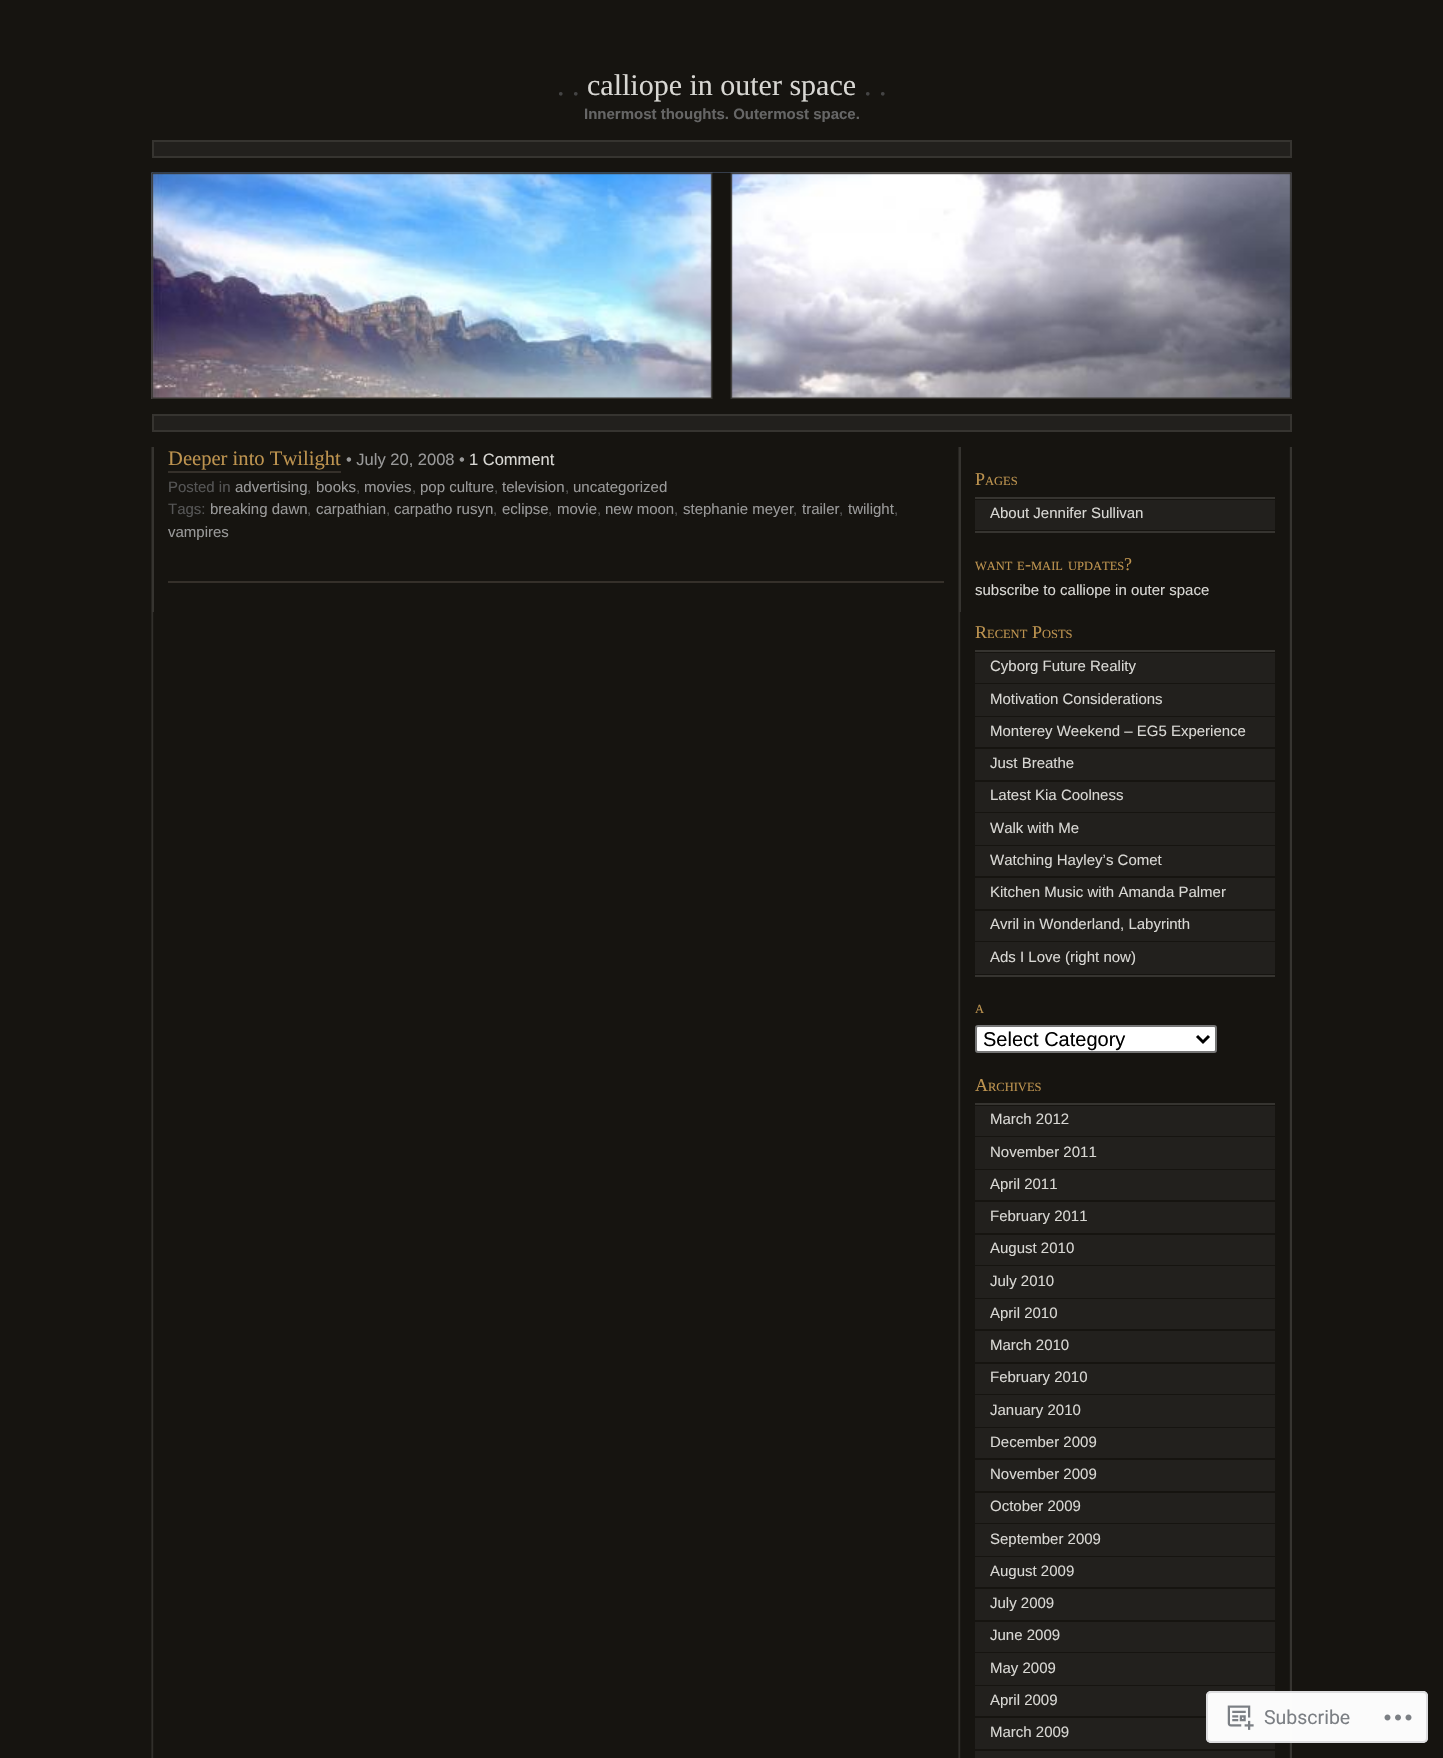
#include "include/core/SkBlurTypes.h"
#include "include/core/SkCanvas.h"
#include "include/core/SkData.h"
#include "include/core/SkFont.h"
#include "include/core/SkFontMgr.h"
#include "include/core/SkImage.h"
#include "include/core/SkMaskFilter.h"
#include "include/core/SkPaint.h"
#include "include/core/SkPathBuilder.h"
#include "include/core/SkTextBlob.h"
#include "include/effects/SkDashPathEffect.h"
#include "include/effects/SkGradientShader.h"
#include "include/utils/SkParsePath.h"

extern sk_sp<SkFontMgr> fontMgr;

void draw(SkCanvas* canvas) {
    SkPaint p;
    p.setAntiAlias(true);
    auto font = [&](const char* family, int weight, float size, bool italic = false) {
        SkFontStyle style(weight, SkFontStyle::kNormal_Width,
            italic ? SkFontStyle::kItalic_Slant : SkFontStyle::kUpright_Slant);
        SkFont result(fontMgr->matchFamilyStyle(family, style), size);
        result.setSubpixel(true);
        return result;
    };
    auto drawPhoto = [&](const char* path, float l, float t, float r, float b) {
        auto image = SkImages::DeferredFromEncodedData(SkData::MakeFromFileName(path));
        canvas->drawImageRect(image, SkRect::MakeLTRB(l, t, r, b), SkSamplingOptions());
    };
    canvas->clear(0xFF161410);
    auto font1 = font("Liberation Serif", 400, 30);
    p.setColor(0xFF444444);
    canvas->drawString(". .", 557, 95, font1, p);
    p.setColor(0xFFD8D7D3);
    canvas->drawString("calliope in outer space", 587, 95, font1, p);
    p.setColor(0xFF444444);
    canvas->drawString(". .", 864, 95, font1, p);
    auto font2 = font("Liberation Sans", 700, 15);
    p.setColor(0xFF666666);
    canvas->drawString("Innermost thoughts. Outermost space.", 584, 119, font2, p);
    p.setColor(0xFF22201D);
    canvas->drawRect(SkRect::MakeLTRB(153, 141, 1291, 157), p);
    p.setStyle(SkPaint::kStroke_Style);
    p.setStrokeWidth(2);
    p.setColor(0xFF363430);
    canvas->drawRect(SkRect::MakeLTRB(153, 141, 1291, 157), p);
    drawPhoto("media/1.png", 151, 172, 1292, 399);
    drawPhoto("media/2.png", 151, 172, 1292, 399);
    p.setStyle(SkPaint::kFill_Style);
    p.setColor(0xFF22201D);
    canvas->drawRect(SkRect::MakeLTRB(153, 415, 1291, 431), p);
    p.setStyle(SkPaint::kStroke_Style);
    p.setColor(0xFF363430);
    canvas->drawRect(SkRect::MakeLTRB(153, 415, 1291, 431), p);
    drawPhoto("media/3.png", 151, 447, 1290, 1758);
    p.setStyle(SkPaint::kFill_Style);
    canvas->drawRect(SkRect::MakeLTRB(959, 447, 961, 612), p);
    canvas->drawRect(SkRect::MakeLTRB(152, 447, 154, 612), p);
    auto font3 = font("Liberation Serif", 400, 20.6f);
    p.setColor(0xFFBD934F);
    canvas->drawString("Deeper into Twilight", 168, 465, font3, p);
    p.setColor(0xFF35302A);
    canvas->drawRect(SkRect::MakeLTRB(168, 471, 341, 473), p);
    auto font4 = font("Liberation Sans", 400, 16.5f);
    p.setColor(0xFF999999);
    canvas->drawString("• July 20, 2008 •", 346, 465, font4, p);
    p.setColor(0xFFD8D7D3);
    canvas->drawString("1 Comment", 469, 465, font4, p);
    auto font5 = font("Liberation Sans", 400, 15);
    p.setColor(0xFF555555);
    canvas->drawString("Posted in", 168, 492, font5, p);
    p.setColor(0xFF999999);
    canvas->drawString("advertising", 235, 492, font5, p);
    p.setColor(0xFF555555);
    canvas->drawString(",", 307, 492, font5, p);
    p.setColor(0xFF999999);
    canvas->drawString("books", 316, 492, font5, p);
    p.setColor(0xFF555555);
    canvas->drawString(",", 356, 492, font5, p);
    p.setColor(0xFF999999);
    canvas->drawString("movies", 364, 492, font5, p);
    p.setColor(0xFF555555);
    canvas->drawString(",", 412, 492, font5, p);
    p.setColor(0xFF999999);
    canvas->drawString("pop culture", 420, 492, font5, p);
    p.setColor(0xFF555555);
    canvas->drawString(",", 494, 492, font5, p);
    p.setColor(0xFF999999);
    canvas->drawString("television", 502, 492, font5, p);
    p.setColor(0xFF555555);
    canvas->drawString(",", 565, 492, font5, p);
    p.setColor(0xFF999999);
    canvas->drawString("uncategorized", 573, 492, font5, p);
    p.setColor(0xFF555555);
    canvas->drawString("Tags:", 168, 514, font5, p);
    p.setColor(0xFF999999);
    canvas->drawString("breaking dawn", 210, 514, font5, p);
    p.setColor(0xFF555555);
    canvas->drawString(",", 307, 514, font5, p);
    p.setColor(0xFF999999);
    canvas->drawString("carpathian", 316, 514, font5, p);
    p.setColor(0xFF555555);
    canvas->drawString(",", 386, 514, font5, p);
    p.setColor(0xFF999999);
    canvas->drawString("carpatho rusyn", 394, 514, font5, p);
    p.setColor(0xFF555555);
    canvas->drawString(",", 493, 514, font5, p);
    p.setColor(0xFF999999);
    canvas->drawString("eclipse", 502, 514, font5, p);
    p.setColor(0xFF555555);
    canvas->drawString(",", 548, 514, font5, p);
    p.setColor(0xFF999999);
    canvas->drawString("movie", 557, 514, font5, p);
    p.setColor(0xFF555555);
    canvas->drawString(",", 597, 514, font5, p);
    p.setColor(0xFF999999);
    canvas->drawString("new moon", 605, 514, font5, p);
    p.setColor(0xFF555555);
    canvas->drawString(",", 674, 514, font5, p);
    p.setColor(0xFF999999);
    canvas->drawString("stephanie meyer", 683, 514, font5, p);
    p.setColor(0xFF555555);
    canvas->drawString(",", 793, 514, font5, p);
    p.setColor(0xFF999999);
    canvas->drawString("trailer", 802, 514, font5, p);
    p.setColor(0xFF555555);
    canvas->drawString(",", 839, 514, font5, p);
    p.setColor(0xFF999999);
    canvas->drawString("twilight", 848, 514, font5, p);
    p.setColor(0xFF555555);
    canvas->drawString(",", 894, 514, font5, p);
    p.setColor(0xFF999999);
    canvas->drawString("vampires", 168, 537, font5, p);
    p.setColor(0xFF35302A);
    canvas->drawRect(SkRect::MakeLTRB(168, 581, 944, 583), p);
    p.setColor(0xFF363430);
    canvas->drawRect(SkRect::MakeLTRB(1290, 447, 1292, 1758), p);
    auto font6 = font("Liberation Serif", 400, 18);
    p.setColor(0xFFBD934F);
    canvas->drawString("P", 975, 485, font6, p);
    auto font7 = font("Liberation Serif", 400, 12.5f);
    canvas->drawString("AGES", 985, 485, font7, p);
    {
        const struct { float l, t, r, b; SkColor color; } items[] = {
            {975, 497, 1275, 499, 0xFF363430},
            {975, 531, 1275, 533, 0xFF363430},
            {975, 500, 1275, 530, 0xFF22201D},
        };
        for (auto [l, t, r, b, color] : items) {
            p.setColor(color);
            canvas->drawRect(SkRect::MakeLTRB(l, t, r, b), p);
        }
    }
    p.setColor(0xFFD8D7D3);
    canvas->drawString("About Jennifer Sullivan", 990, 518, font5, p);
    p.setColor(0xFFBD934F);
    canvas->drawString("WANT", 975, 570, font7, p);
    canvas->drawString("E", 1017, 570, font7, p);
    canvas->drawString("-", 1025, 570, font6, p);
    canvas->drawString("MAIL", 1031, 570, font7, p);
    canvas->drawString("UPDATES", 1068, 570, font7, p);
    canvas->drawString("?", 1124, 570, font6, p);
    p.setColor(0xFFD8D7D3);
    canvas->drawString("subscribe to calliope in outer space", 975, 595, font5, p);
    p.setColor(0xFFBD934F);
    canvas->drawString("R", 975, 638, font6, p);
    canvas->drawString("ECENT", 987, 638, font7, p);
    canvas->drawString("P", 1032, 638, font6, p);
    canvas->drawString("OSTS", 1042, 638, font7, p);
    {
        const struct { float l, t, r, b; SkColor color; } items[] = {
            {975, 650, 1275, 652, 0xFF363430},
            {975, 975, 1275, 977, 0xFF363430},
            {975, 653, 1275, 683, 0xFF22201D},
        };
        for (auto [l, t, r, b, color] : items) {
            p.setColor(color);
            canvas->drawRect(SkRect::MakeLTRB(l, t, r, b), p);
        }
    }
    p.setColor(0xFFD8D7D3);
    canvas->drawString("Cyborg Future Reality", 990, 671, font5, p);
    p.setColor(0xFF22201D);
    canvas->drawRect(SkRect::MakeLTRB(975, 684, 1275, 716), p);
    p.setColor(0xFFD8D7D3);
    canvas->drawString("Motivation Considerations", 990, 704, font5, p);
    p.setColor(0xFF22201D);
    canvas->drawRect(SkRect::MakeLTRB(975, 717, 1275, 747), p);
    p.setColor(0xFFD8D7D3);
    canvas->drawString("Monterey Weekend – EG5 Experience", 990, 736, font5, p);
    p.setColor(0xFF22201D);
    canvas->drawRect(SkRect::MakeLTRB(975, 749, 1275, 780), p);
    p.setColor(0xFFD8D7D3);
    canvas->drawString("Just Breathe", 990, 768, font5, p);
    p.setColor(0xFF22201D);
    canvas->drawRect(SkRect::MakeLTRB(975, 782, 1275, 812), p);
    p.setColor(0xFFD8D7D3);
    canvas->drawString("Latest Kia Coolness", 990, 800, font5, p);
    p.setColor(0xFF22201D);
    canvas->drawRect(SkRect::MakeLTRB(975, 813, 1275, 845), p);
    p.setColor(0xFFD8D7D3);
    canvas->drawString("Walk with Me", 990, 833, font5, p);
    p.setColor(0xFF22201D);
    canvas->drawRect(SkRect::MakeLTRB(975, 846, 1275, 876), p);
    p.setColor(0xFFD8D7D3);
    canvas->drawString("Watching Hayley’s Comet", 990, 865, font5, p);
    p.setColor(0xFF22201D);
    canvas->drawRect(SkRect::MakeLTRB(975, 878, 1275, 909), p);
    p.setColor(0xFFD8D7D3);
    canvas->drawString("Kitchen Music with Amanda Palmer", 990, 897, font5, p);
    p.setColor(0xFF22201D);
    canvas->drawRect(SkRect::MakeLTRB(975, 911, 1275, 941), p);
    p.setColor(0xFFD8D7D3);
    canvas->drawString("Avril in Wonderland, Labyrinth", 990, 929, font5, p);
    p.setColor(0xFF22201D);
    canvas->drawRect(SkRect::MakeLTRB(975, 942, 1275, 974), p);
    p.setColor(0xFFD8D7D3);
    canvas->drawString("Ads I Love (right now)", 990, 962, font5, p);
    p.setColor(0xFFBD934F);
    canvas->drawString("A", 975, 1013, font7, p);
    p.setColor(0xFFFFFFFF);
    canvas->drawRoundRect(SkRect::MakeLTRB(976, 1026, 1216, 1052), 2, 2, p);
    p.setStyle(SkPaint::kStroke_Style);
    p.setColor(0xFF767676);
    canvas->drawRoundRect(SkRect::MakeLTRB(976, 1026, 1216, 1052), 2, 2, p);
    p.setStrokeWidth(3);
    p.setColor(0xFF000000);
    canvas->drawPath(SkPathBuilder().moveTo(1197, 1036).lineTo(1203, 1042).lineTo(1209, 1036).detach(), p);
    auto font8 = font("Liberation Sans", 400, 20);
    p.setStyle(SkPaint::kFill_Style);
    canvas->drawString("Select Category", 983, 1046, font8, p);
    p.setColor(0xFFBD934F);
    canvas->drawString("A", 975, 1091, font6, p);
    canvas->drawString("RCHIVES", 988, 1091, font7, p);
    p.setColor(0xFF363430);
    canvas->drawRect(SkRect::MakeLTRB(975, 1103, 1275, 1105), p);
    p.setColor(0xFF22201D);
    canvas->drawRect(SkRect::MakeLTRB(975, 1106, 1275, 1136), p);
    p.setColor(0xFFD8D7D3);
    canvas->drawString("March 2012", 990, 1124, font5, p);
    p.setColor(0xFF22201D);
    canvas->drawRect(SkRect::MakeLTRB(975, 1137, 1275, 1169), p);
    p.setColor(0xFFD8D7D3);
    canvas->drawString("November 2011", 990, 1157, font5, p);
    p.setColor(0xFF22201D);
    canvas->drawRect(SkRect::MakeLTRB(975, 1170, 1275, 1200), p);
    p.setColor(0xFFD8D7D3);
    canvas->drawString("April 2011", 990, 1189, font5, p);
    p.setColor(0xFF22201D);
    canvas->drawRect(SkRect::MakeLTRB(975, 1202, 1275, 1233), p);
    p.setColor(0xFFD8D7D3);
    canvas->drawString("February 2011", 990, 1221, font5, p);
    p.setColor(0xFF22201D);
    canvas->drawRect(SkRect::MakeLTRB(975, 1235, 1275, 1265), p);
    p.setColor(0xFFD8D7D3);
    canvas->drawString("August 2010", 990, 1253, font5, p);
    p.setColor(0xFF22201D);
    canvas->drawRect(SkRect::MakeLTRB(975, 1266, 1275, 1298), p);
    p.setColor(0xFFD8D7D3);
    canvas->drawString("July 2010", 990, 1286, font5, p);
    p.setColor(0xFF22201D);
    canvas->drawRect(SkRect::MakeLTRB(975, 1299, 1275, 1329), p);
    p.setColor(0xFFD8D7D3);
    canvas->drawString("April 2010", 990, 1318, font5, p);
    p.setColor(0xFF22201D);
    canvas->drawRect(SkRect::MakeLTRB(975, 1331, 1275, 1362), p);
    p.setColor(0xFFD8D7D3);
    canvas->drawString("March 2010", 990, 1350, font5, p);
    p.setColor(0xFF22201D);
    canvas->drawRect(SkRect::MakeLTRB(975, 1364, 1275, 1394), p);
    p.setColor(0xFFD8D7D3);
    canvas->drawString("February 2010", 990, 1382, font5, p);
    p.setColor(0xFF22201D);
    canvas->drawRect(SkRect::MakeLTRB(975, 1395, 1275, 1427), p);
    p.setColor(0xFFD8D7D3);
    canvas->drawString("January 2010", 990, 1415, font5, p);
    p.setColor(0xFF22201D);
    canvas->drawRect(SkRect::MakeLTRB(975, 1428, 1275, 1458), p);
    p.setColor(0xFFD8D7D3);
    canvas->drawString("December 2009", 990, 1447, font5, p);
    p.setColor(0xFF22201D);
    canvas->drawRect(SkRect::MakeLTRB(975, 1460, 1275, 1491), p);
    p.setColor(0xFFD8D7D3);
    canvas->drawString("November 2009", 990, 1479, font5, p);
    p.setColor(0xFF22201D);
    canvas->drawRect(SkRect::MakeLTRB(975, 1493, 1275, 1523), p);
    p.setColor(0xFFD8D7D3);
    canvas->drawString("October 2009", 990, 1511, font5, p);
    p.setColor(0xFF22201D);
    canvas->drawRect(SkRect::MakeLTRB(975, 1524, 1275, 1556), p);
    p.setColor(0xFFD8D7D3);
    canvas->drawString("September 2009", 990, 1544, font5, p);
    p.setColor(0xFF22201D);
    canvas->drawRect(SkRect::MakeLTRB(975, 1557, 1275, 1587), p);
    p.setColor(0xFFD8D7D3);
    canvas->drawString("August 2009", 990, 1576, font5, p);
    p.setColor(0xFF22201D);
    canvas->drawRect(SkRect::MakeLTRB(975, 1589, 1275, 1620), p);
    p.setColor(0xFFD8D7D3);
    canvas->drawString("July 2009", 990, 1608, font5, p);
    p.setColor(0xFF22201D);
    canvas->drawRect(SkRect::MakeLTRB(975, 1622, 1275, 1652), p);
    p.setColor(0xFFD8D7D3);
    canvas->drawString("June 2009", 990, 1640, font5, p);
    p.setColor(0xFF22201D);
    canvas->drawRect(SkRect::MakeLTRB(975, 1653, 1275, 1685), p);
    p.setColor(0xFFD8D7D3);
    canvas->drawString("May 2009", 990, 1673, font5, p);
    p.setColor(0xFF22201D);
    canvas->drawRect(SkRect::MakeLTRB(975, 1686, 1275, 1716), p);
    p.setColor(0xFFD8D7D3);
    canvas->drawString("April 2009", 990, 1705, font5, p);
    p.setColor(0xFF22201D);
    canvas->drawRect(SkRect::MakeLTRB(975, 1718, 1275, 1749), p);
    p.setColor(0xFFD8D7D3);
    canvas->drawString("March 2009", 990, 1737, font5, p);
    p.setColor(0xFF22201D);
    canvas->drawRect(SkRect::MakeLTRB(975, 1751, 1275, 1758), p);
    p.setColor(0xFAFFFFFF);
    canvas->drawRoundRect(SkRect::MakeLTRB(1206, 1691, 1428, 1743), 5, 5, p);
    p.setStyle(SkPaint::kStroke_Style);
    p.setStrokeWidth(2);
    p.setColor(0xFADCDCDE);
    canvas->drawRoundRect(SkRect::MakeLTRB(1207, 1692, 1427, 1742), 4, 4, p);
    drawPhoto("media/4.png", 1227, 1705, 1254, 1730);
    auto font9 = font("Roboto", 400, 19.5f);
    p.setStyle(SkPaint::kFill_Style);
    p.setColor(0xFF7B7F84);
    canvas->drawString("Subscribe", 1264, 1724, font9, p);
    drawPhoto("media/5.png", 1384, 1714, 1412, 1721);
}
